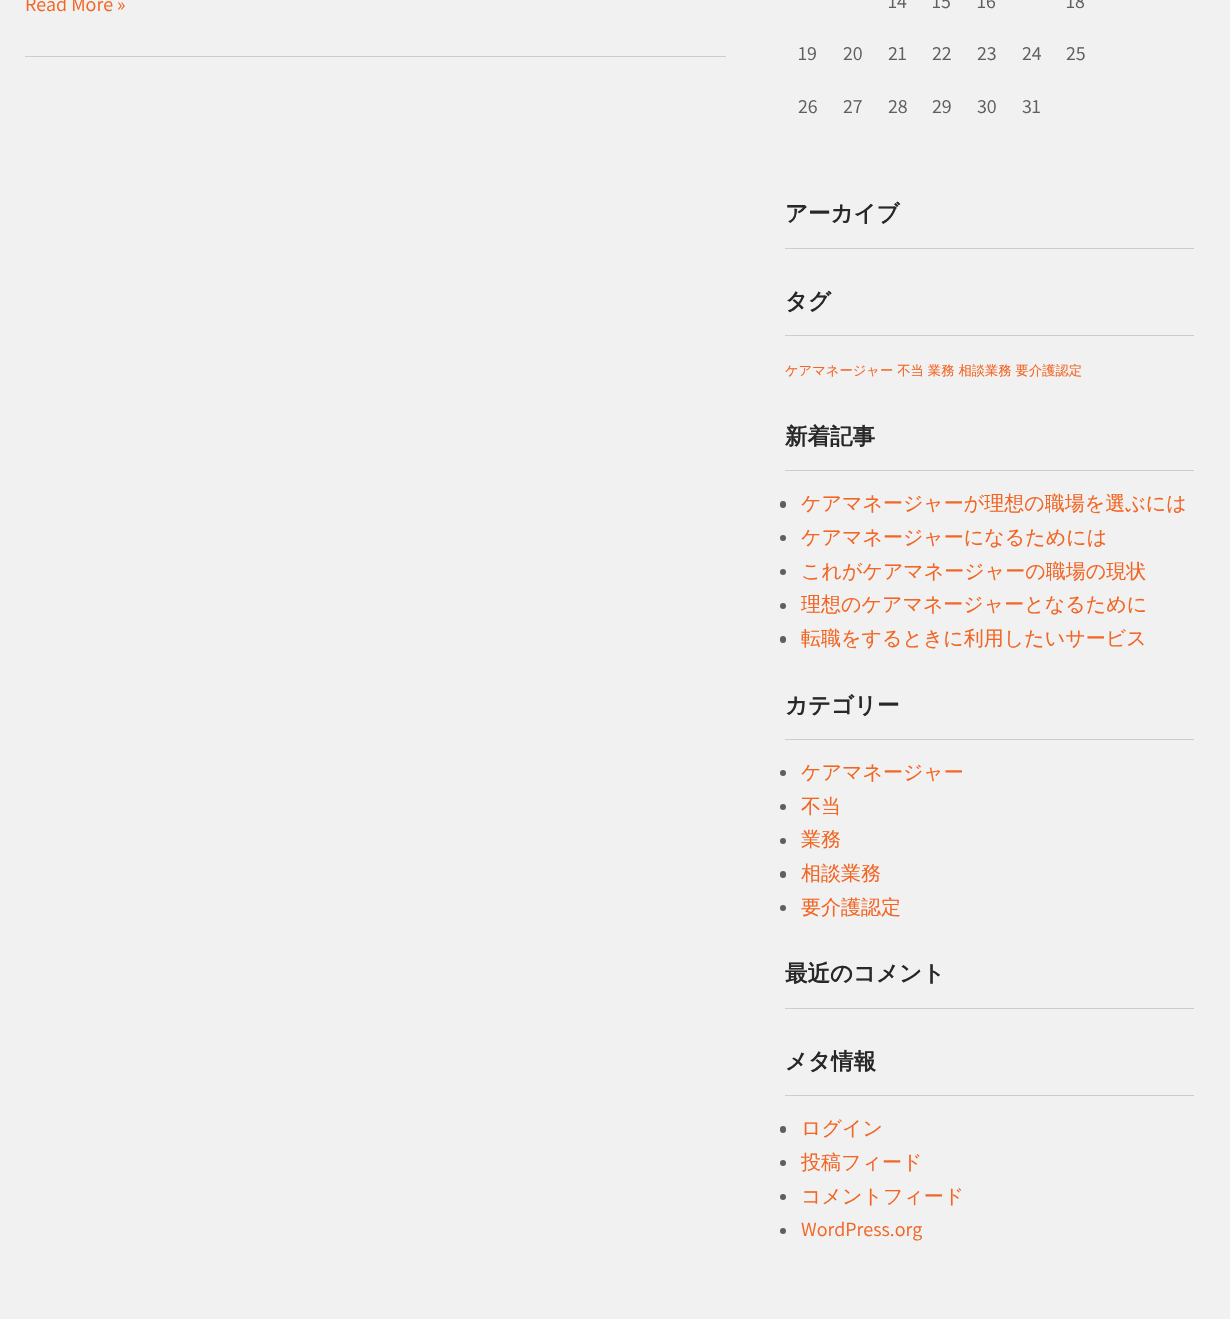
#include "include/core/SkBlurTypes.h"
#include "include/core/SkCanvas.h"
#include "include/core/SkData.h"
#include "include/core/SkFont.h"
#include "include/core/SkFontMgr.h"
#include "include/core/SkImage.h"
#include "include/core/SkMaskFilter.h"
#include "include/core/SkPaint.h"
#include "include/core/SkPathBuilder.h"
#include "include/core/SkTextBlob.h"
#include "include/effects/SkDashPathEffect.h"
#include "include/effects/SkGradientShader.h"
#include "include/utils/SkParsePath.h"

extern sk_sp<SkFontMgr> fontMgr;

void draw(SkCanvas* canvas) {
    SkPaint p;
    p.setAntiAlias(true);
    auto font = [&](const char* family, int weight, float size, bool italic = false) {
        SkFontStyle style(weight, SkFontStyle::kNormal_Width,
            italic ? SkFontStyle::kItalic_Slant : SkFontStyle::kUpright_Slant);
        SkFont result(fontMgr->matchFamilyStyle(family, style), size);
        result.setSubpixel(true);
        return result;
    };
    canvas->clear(0xFFF1F1F1);
    p.setColor(0xFFCCCCCC);
    canvas->drawRect(SkRect::MakeLTRB(25, 56, 726, 57), p);
    auto font1 = font("Assistant", 400, 20);
    p.setColor(0xFFF36523);
    canvas->drawString("Read More »", 25, 11, font1, p);
    p.setColor(0xFF5F5F5F);
    {
        const struct { const char* s; float x, y; } items[] = {
            {"14", 888, 8},
            {"15", 932, 8},
            {"16", 977, 8},
            {"18", 1066, 8},
            {"19", 798, 60},
            {"20", 843, 60},
            {"21", 888, 60},
            {"22", 932, 60},
            {"23", 977, 60},
            {"24", 1022, 60},
            {"25", 1066, 60},
            {"26", 798, 113},
            {"27", 843, 113},
            {"28", 888, 113},
            {"29", 932, 113},
            {"30", 977, 113},
            {"31", 1022, 113},
        };
        for (auto [s, x, y] : items) {
            canvas->drawString(s, x, y, font1, p);
        }
    }
    p.setColor(0xFFCCCCCC);
    canvas->drawRect(SkRect::MakeLTRB(785, 248, 1194, 249), p);
    auto font2 = font("WenQuanYi Zen Hei", 700, 22.5f);
    p.setColor(0xFF282828);
    canvas->drawString("アーカイブ", 785, 221, font2, p);
    p.setColor(0xFFCCCCCC);
    canvas->drawRect(SkRect::MakeLTRB(785, 335, 1194, 336), p);
    p.setColor(0xFF282828);
    canvas->drawString("タグ", 785, 309, font2, p);
    auto font3 = font("WenQuanYi Zen Hei", 500, 13.3f);
    p.setColor(0xFFF36523);
    canvas->drawString("ケアマネージャー 不当 業務 相談業務 要介護認定", 785, 375, font3, p);
    p.setColor(0xFFCCCCCC);
    canvas->drawRect(SkRect::MakeLTRB(785, 470, 1194, 471), p);
    p.setColor(0xFF282828);
    canvas->drawString("新着記事", 785, 444, font2, p);
    p.setColor(0xFF5F5F5F);
    canvas->drawRoundRect(SkRect::MakeLTRB(780, 501, 786, 508), 3, 3, p);
    auto font4 = font("WenQuanYi Zen Hei", 500, 20);
    p.setColor(0xFFF36523);
    canvas->drawString("ケアマネージャーが理想の職場を選ぶには", 801, 510, font4, p);
    p.setColor(0xFF5F5F5F);
    canvas->drawCircle(783, 538, 3, p);
    p.setColor(0xFFF36523);
    canvas->drawString("ケアマネージャーになるためには", 801, 544, font4, p);
    p.setColor(0xFF5F5F5F);
    canvas->drawCircle(783, 572, 3, p);
    p.setColor(0xFFF36523);
    canvas->drawString("これがケアマネージャーの職場の現状", 801, 578, font4, p);
    p.setColor(0xFF5F5F5F);
    canvas->drawCircle(783, 606, 3, p);
    p.setColor(0xFFF36523);
    canvas->drawString("理想のケアマネージャーとなるために", 801, 611, font4, p);
    p.setColor(0xFF5F5F5F);
    canvas->drawRoundRect(SkRect::MakeLTRB(780, 636, 786, 643), 3, 3, p);
    p.setColor(0xFFF36523);
    canvas->drawString("転職をするときに利用したいサービス", 801, 645, font4, p);
    p.setColor(0xFFCCCCCC);
    canvas->drawRect(SkRect::MakeLTRB(785, 739, 1194, 740), p);
    p.setColor(0xFF282828);
    canvas->drawString("カテゴリー", 785, 713, font2, p);
    p.setColor(0xFF5F5F5F);
    canvas->drawCircle(783, 773, 3, p);
    p.setColor(0xFFF36523);
    canvas->drawString("ケアマネージャー", 801, 779, font4, p);
    p.setColor(0xFF5F5F5F);
    canvas->drawCircle(783, 807, 3, p);
    p.setColor(0xFFF36523);
    canvas->drawString("不当", 801, 813, font4, p);
    p.setColor(0xFF5F5F5F);
    canvas->drawCircle(783, 841, 3, p);
    p.setColor(0xFFF36523);
    canvas->drawString("業務", 801, 846, font4, p);
    p.setColor(0xFF5F5F5F);
    canvas->drawRoundRect(SkRect::MakeLTRB(780, 871, 786, 878), 3, 3, p);
    p.setColor(0xFFF36523);
    canvas->drawString("相談業務", 801, 880, font4, p);
    p.setColor(0xFF5F5F5F);
    canvas->drawCircle(783, 908, 3, p);
    p.setColor(0xFFF36523);
    canvas->drawString("要介護認定", 801, 914, font4, p);
    p.setColor(0xFFCCCCCC);
    canvas->drawRect(SkRect::MakeLTRB(785, 1008, 1194, 1009), p);
    p.setColor(0xFF282828);
    canvas->drawString("最近のコメント", 785, 981, font2, p);
    p.setColor(0xFFCCCCCC);
    canvas->drawRect(SkRect::MakeLTRB(785, 1095, 1194, 1096), p);
    p.setColor(0xFF282828);
    canvas->drawString("メタ情報", 785, 1069, font2, p);
    p.setColor(0xFF5F5F5F);
    canvas->drawRoundRect(SkRect::MakeLTRB(780, 1126, 786, 1133), 3, 3, p);
    p.setColor(0xFFF36523);
    canvas->drawString("ログイン", 801, 1135, font4, p);
    p.setColor(0xFF5F5F5F);
    canvas->drawCircle(783, 1163, 3, p);
    p.setColor(0xFFF36523);
    canvas->drawString("投稿フィード", 801, 1169, font4, p);
    p.setColor(0xFF5F5F5F);
    canvas->drawCircle(783, 1197, 3, p);
    p.setColor(0xFFF36523);
    canvas->drawString("コメントフィード", 801, 1203, font4, p);
    p.setColor(0xFF5F5F5F);
    canvas->drawCircle(783, 1231, 3, p);
    p.setColor(0xFFF36523);
    canvas->drawString("WordPress.org", 801, 1236, font1, p);
}
